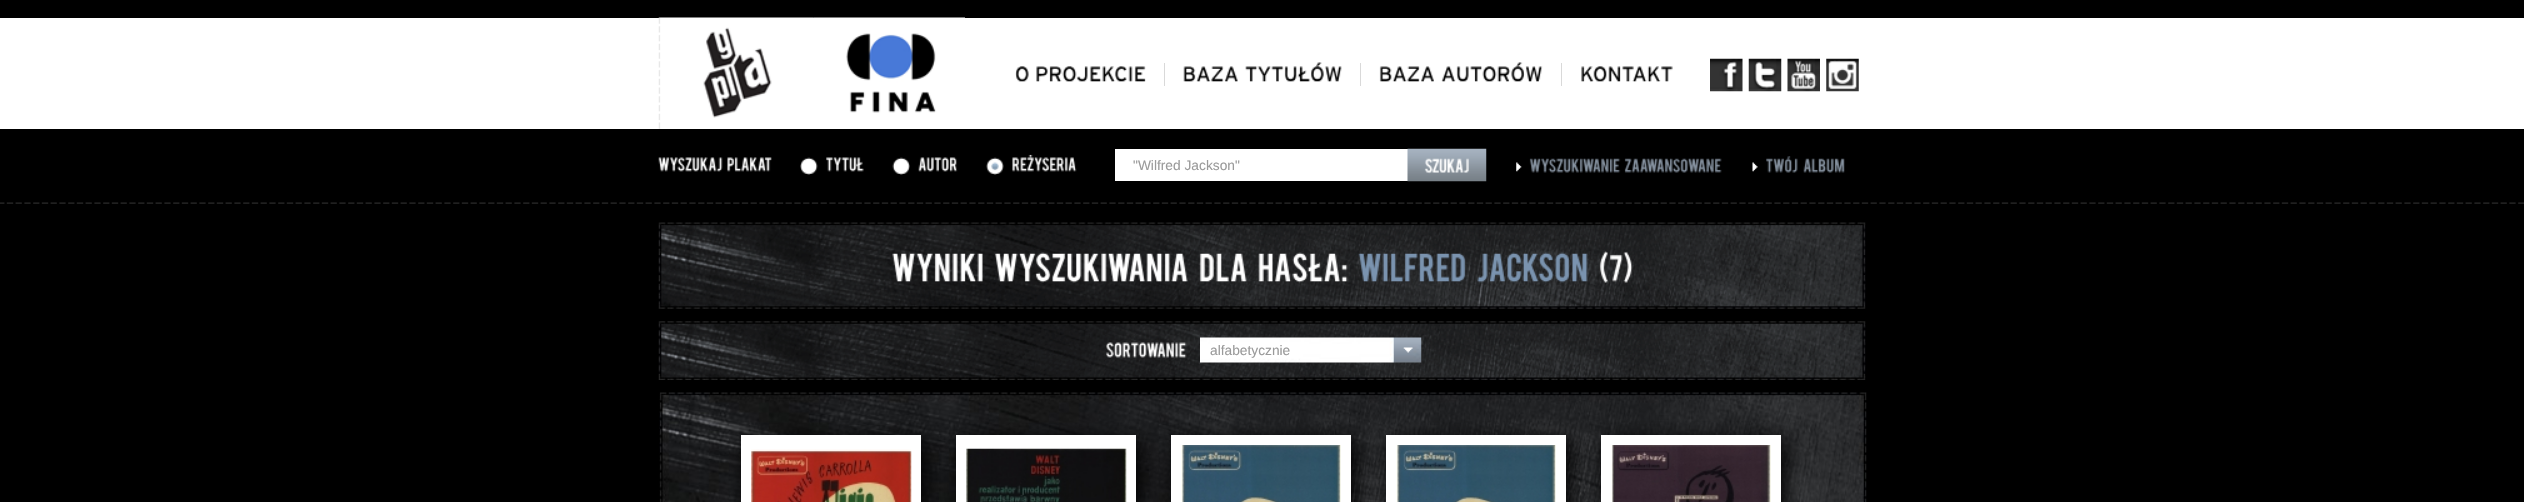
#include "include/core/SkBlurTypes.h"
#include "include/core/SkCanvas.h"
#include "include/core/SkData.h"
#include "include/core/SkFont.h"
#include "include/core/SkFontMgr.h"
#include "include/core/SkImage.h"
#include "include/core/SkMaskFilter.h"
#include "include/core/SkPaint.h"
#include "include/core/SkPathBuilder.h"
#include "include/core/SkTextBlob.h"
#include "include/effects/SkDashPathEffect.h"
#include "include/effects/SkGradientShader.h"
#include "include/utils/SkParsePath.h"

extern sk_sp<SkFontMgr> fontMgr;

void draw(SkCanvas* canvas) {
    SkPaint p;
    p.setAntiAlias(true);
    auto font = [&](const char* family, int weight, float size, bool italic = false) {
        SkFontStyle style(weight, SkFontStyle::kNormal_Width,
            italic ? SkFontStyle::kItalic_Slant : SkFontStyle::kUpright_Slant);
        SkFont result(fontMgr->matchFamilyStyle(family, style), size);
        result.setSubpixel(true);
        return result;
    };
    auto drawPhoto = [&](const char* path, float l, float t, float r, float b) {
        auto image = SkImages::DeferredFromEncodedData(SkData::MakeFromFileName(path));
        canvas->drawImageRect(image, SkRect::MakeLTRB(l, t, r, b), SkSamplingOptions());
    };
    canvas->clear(0xFF000000);
    p.setColor(0xFFFFFFFF);
    canvas->drawRect(SkRect::MakeLTRB(0, 18, 2524, 129), p);
    drawPhoto("media/1.png", 658, 17, 814, 129);
    drawPhoto("media/2.png", 813, 17, 965, 113);
    p.setColor(0xFFD9D9D9);
    canvas->drawRect(SkRect::MakeLTRB(1164, 63, 1165, 86), p);
    drawPhoto("media/3.png", 1015, 66, 1029, 82);
    drawPhoto("media/4.png", 1036, 66, 1146, 82);
    canvas->drawRect(SkRect::MakeLTRB(1360, 63, 1361, 86), p);
    drawPhoto("media/5.png", 1183, 66, 1238, 82);
    drawPhoto("media/6.png", 1245, 62, 1342, 82);
    canvas->drawRect(SkRect::MakeLTRB(1561, 63, 1562, 86), p);
    drawPhoto("media/7.png", 1379, 66, 1434, 82);
    drawPhoto("media/8.png", 1441, 62, 1543, 82);
    drawPhoto("media/9.png", 1581, 66, 1673, 82);
    drawPhoto("media/10.png", 1710, 58, 1743, 92);
    drawPhoto("media/11.png", 1748, 58, 1782, 92);
    drawPhoto("media/12.png", 1787, 58, 1820, 92);
    drawPhoto("media/13.png", 1826, 58, 1859, 92);
    drawPhoto("media/14.png", 0, 202, 2524, 204);
    drawPhoto("media/15.png", 658, 157, 723, 172);
    drawPhoto("media/16.png", 727, 157, 772, 172);
    drawPhoto("media/17.png", 800, 157, 818, 175);
    drawPhoto("media/18.png", 826, 157, 864, 172);
    drawPhoto("media/19.png", 892, 157, 910, 175);
    drawPhoto("media/20.png", 918, 157, 958, 172);
    drawPhoto("media/21.png", 986, 157, 1004, 175);
    drawPhoto("media/22.png", 1012, 154, 1077, 172);
    p.setColor(0xFFFFFFFF);
    canvas->drawRect(SkRect::MakeLTRB(1115, 149, 1408, 181), p);
    auto font1 = font("Liberation Sans", 400, 13.75f);
    p.setColor(0xFF9A9A9A);
    canvas->drawString("\"Wilfred Jackson\"", 1133, 170, font1, p);
    drawPhoto("media/23.png", 1407, 148, 1487, 182);
    drawPhoto("media/24.png", 1516, 162, 1522, 172);
    drawPhoto("media/25.png", 1529, 158, 1621, 173);
    drawPhoto("media/26.png", 1624, 158, 1722, 173);
    drawPhoto("media/27.png", 1752, 162, 1758, 172);
    drawPhoto("media/28.png", 1766, 156, 1798, 173);
    drawPhoto("media/29.png", 1803, 158, 1845, 173);
    drawPhoto("media/30.png", 658, 222, 1866, 309);
    drawPhoto("media/31.png", 892, 253, 983, 282);
    drawPhoto("media/32.png", 994, 252, 1188, 283);
    drawPhoto("media/33.png", 1199, 253, 1247, 282);
    drawPhoto("media/34.png", 1258, 252, 1348, 283);
    drawPhoto("media/35.png", 1358, 253, 1466, 282);
    drawPhoto("media/36.png", 1477, 252, 1588, 283);
    drawPhoto("media/37.png", 1599, 251, 1633, 283);
    drawPhoto("media/38.png", 658, 321, 1866, 380);
    drawPhoto("media/39.png", 1106, 342, 1187, 358);
    drawPhoto("media/40.png", 1200, 337, 1422, 363);
    canvas->drawString("alfabetycznie", 1210, 355, font1, p);
    drawPhoto("media/41.png", 659, 392, 1867, 502);
    p.setColor(0xFF000000);
    p.setMaskFilter(SkMaskFilter::MakeBlur(kNormal_SkBlurStyle, 9));
    canvas->drawRect(SkRect::MakeLTRB(745, 439, 925, 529), p);
    p.setMaskFilter(nullptr);
    p.setColor(0xFFFFFFFF);
    canvas->drawRect(SkRect::MakeLTRB(741, 435, 921, 502), p);
    drawPhoto("media/42.png", 751, 449, 912, 502);
    p.setColor(0xFF000000);
    p.setMaskFilter(SkMaskFilter::MakeBlur(kNormal_SkBlurStyle, 9));
    canvas->drawRect(SkRect::MakeLTRB(960, 439, 1140, 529), p);
    p.setMaskFilter(nullptr);
    p.setColor(0xFFFFFFFF);
    canvas->drawRect(SkRect::MakeLTRB(956, 435, 1136, 502), p);
    drawPhoto("media/43.png", 966, 447, 1127, 502);
    p.setColor(0xFF000000);
    p.setMaskFilter(SkMaskFilter::MakeBlur(kNormal_SkBlurStyle, 9));
    canvas->drawRect(SkRect::MakeLTRB(1175, 439, 1355, 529), p);
    p.setMaskFilter(nullptr);
    p.setColor(0xFFFFFFFF);
    canvas->drawRect(SkRect::MakeLTRB(1171, 435, 1351, 502), p);
    drawPhoto("media/44.png", 1181, 445, 1341, 502);
    p.setColor(0xFF000000);
    p.setMaskFilter(SkMaskFilter::MakeBlur(kNormal_SkBlurStyle, 9));
    canvas->drawRect(SkRect::MakeLTRB(1390, 439, 1570, 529), p);
    p.setMaskFilter(nullptr);
    p.setColor(0xFFFFFFFF);
    canvas->drawRect(SkRect::MakeLTRB(1386, 435, 1566, 502), p);
    drawPhoto("media/44.png", 1396, 445, 1556, 502);
    p.setColor(0xFF000000);
    p.setMaskFilter(SkMaskFilter::MakeBlur(kNormal_SkBlurStyle, 9));
    canvas->drawRect(SkRect::MakeLTRB(1605, 439, 1785, 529), p);
    p.setMaskFilter(nullptr);
    p.setColor(0xFFFFFFFF);
    canvas->drawRect(SkRect::MakeLTRB(1601, 435, 1781, 502), p);
    drawPhoto("media/45.png", 1611, 445, 1771, 502);
}
